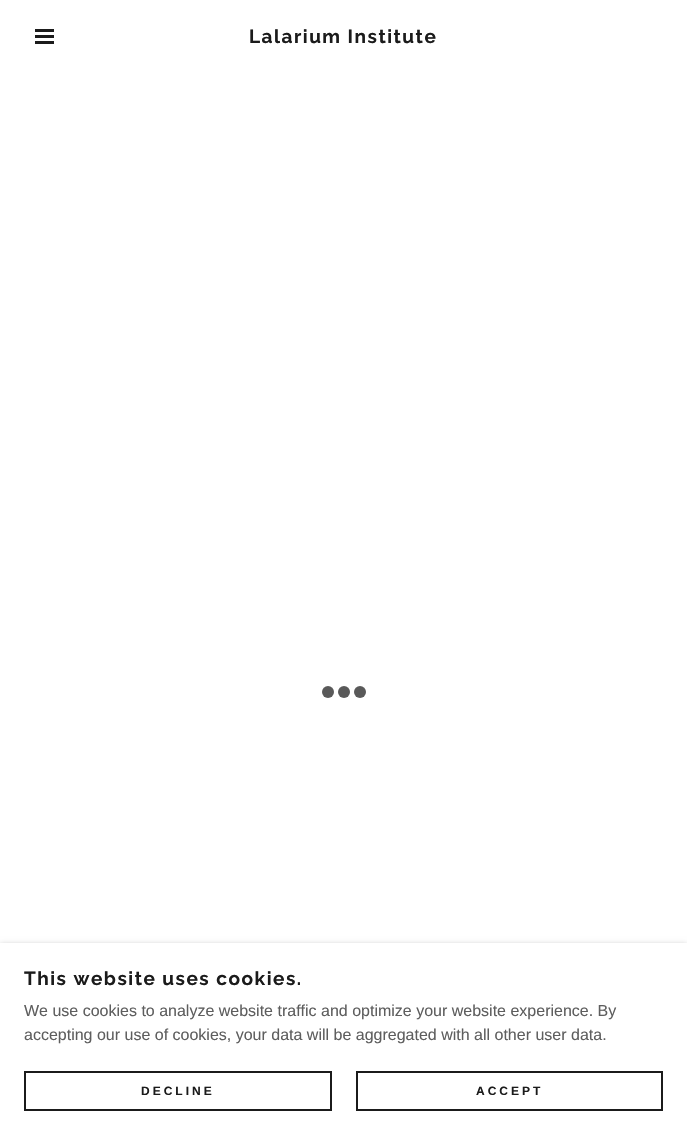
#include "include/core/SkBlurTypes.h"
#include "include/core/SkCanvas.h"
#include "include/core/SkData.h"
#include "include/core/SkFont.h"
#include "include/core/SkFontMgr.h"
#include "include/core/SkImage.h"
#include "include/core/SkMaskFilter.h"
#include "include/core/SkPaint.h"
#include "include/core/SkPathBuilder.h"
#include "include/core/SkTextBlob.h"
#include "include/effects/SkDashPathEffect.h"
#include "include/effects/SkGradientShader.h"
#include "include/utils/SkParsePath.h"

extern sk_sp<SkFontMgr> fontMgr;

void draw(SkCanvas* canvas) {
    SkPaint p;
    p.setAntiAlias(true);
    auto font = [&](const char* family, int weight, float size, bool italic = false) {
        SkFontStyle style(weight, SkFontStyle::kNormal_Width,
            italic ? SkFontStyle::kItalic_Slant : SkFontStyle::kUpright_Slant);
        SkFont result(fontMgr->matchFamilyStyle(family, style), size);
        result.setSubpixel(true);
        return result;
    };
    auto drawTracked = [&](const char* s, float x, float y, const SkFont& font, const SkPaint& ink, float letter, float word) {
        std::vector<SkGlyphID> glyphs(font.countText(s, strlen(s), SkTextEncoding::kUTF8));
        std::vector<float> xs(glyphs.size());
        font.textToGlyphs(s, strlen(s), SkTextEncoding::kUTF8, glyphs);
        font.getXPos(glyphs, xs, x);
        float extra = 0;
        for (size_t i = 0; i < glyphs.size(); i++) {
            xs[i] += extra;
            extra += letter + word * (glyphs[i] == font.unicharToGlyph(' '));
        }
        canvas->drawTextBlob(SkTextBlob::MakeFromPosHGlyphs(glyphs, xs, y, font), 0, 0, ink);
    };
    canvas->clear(0xFFFFFFFF);
    {
        const struct { float l, t, r, b; SkColor color; } items[] = {
            {35, 29, 54, 32, 0xFF1B1B1B},
            {35, 35, 54, 38, 0xFF1B1B1B},
            {35, 41, 54, 44, 0xFF1B1B1B},
        };
        for (auto [l, t, r, b, color] : items) {
            p.setColor(color);
            canvas->drawRect(SkRect::MakeLTRB(l, t, r, b), p);
        }
    }
    auto font1 = font("Raleway", 700, 19);
    drawTracked("Lalarium Institute", 249, 43, font1, p, 1.5f, 0);
    p.setColor(0xFF595959);
    canvas->drawCircle(328, 692, 6, p);
    canvas->drawCircle(344, 692, 6, p);
    canvas->drawCircle(360, 692, 6, p);
    p.setColor(0x4D000000);
    p.setMaskFilter(SkMaskFilter::MakeBlur(kNormal_SkBlurStyle, 3));
    canvas->drawRect(SkRect::MakeLTRB(0, 945, 687, 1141), p);
    p.setMaskFilter(nullptr);
    p.setColor(0xFFFFFFFF);
    canvas->drawRect(SkRect::MakeLTRB(0, 943, 687, 1139), p);
    p.setColor(0xFF1B1B1B);
    drawTracked("This website uses cookies.", 24, 985, font1, p, 1.5f, 0);
    auto font2 = font("Liberation Sans", 400, 16);
    p.setColor(0xFF5E5E5E);
    canvas->drawString("We use cookies to analyze website traffic and optimize your website experience. By", 24, 1016, font2, p);
    canvas->drawString("accepting our use of cookies, your data will be aggregated with all other user data.", 24, 1040, font2, p);
    p.setStyle(SkPaint::kStroke_Style);
    p.setStrokeWidth(2);
    p.setColor(0xFF1B1B1B);
    canvas->drawRect(SkRect::MakeLTRB(25, 1072, 331, 1110), p);
    auto font3 = font("Liberation Sans", 700, 12);
    p.setStyle(SkPaint::kFill_Style);
    drawTracked("DECLINE", 141, 1095, font3, p, 3, 0);
    p.setStyle(SkPaint::kStroke_Style);
    canvas->drawRect(SkRect::MakeLTRB(357, 1072, 662, 1110), p);
    p.setStyle(SkPaint::kFill_Style);
    drawTracked("ACCEPT", 476, 1095, font3, p, 3, 0);
}
